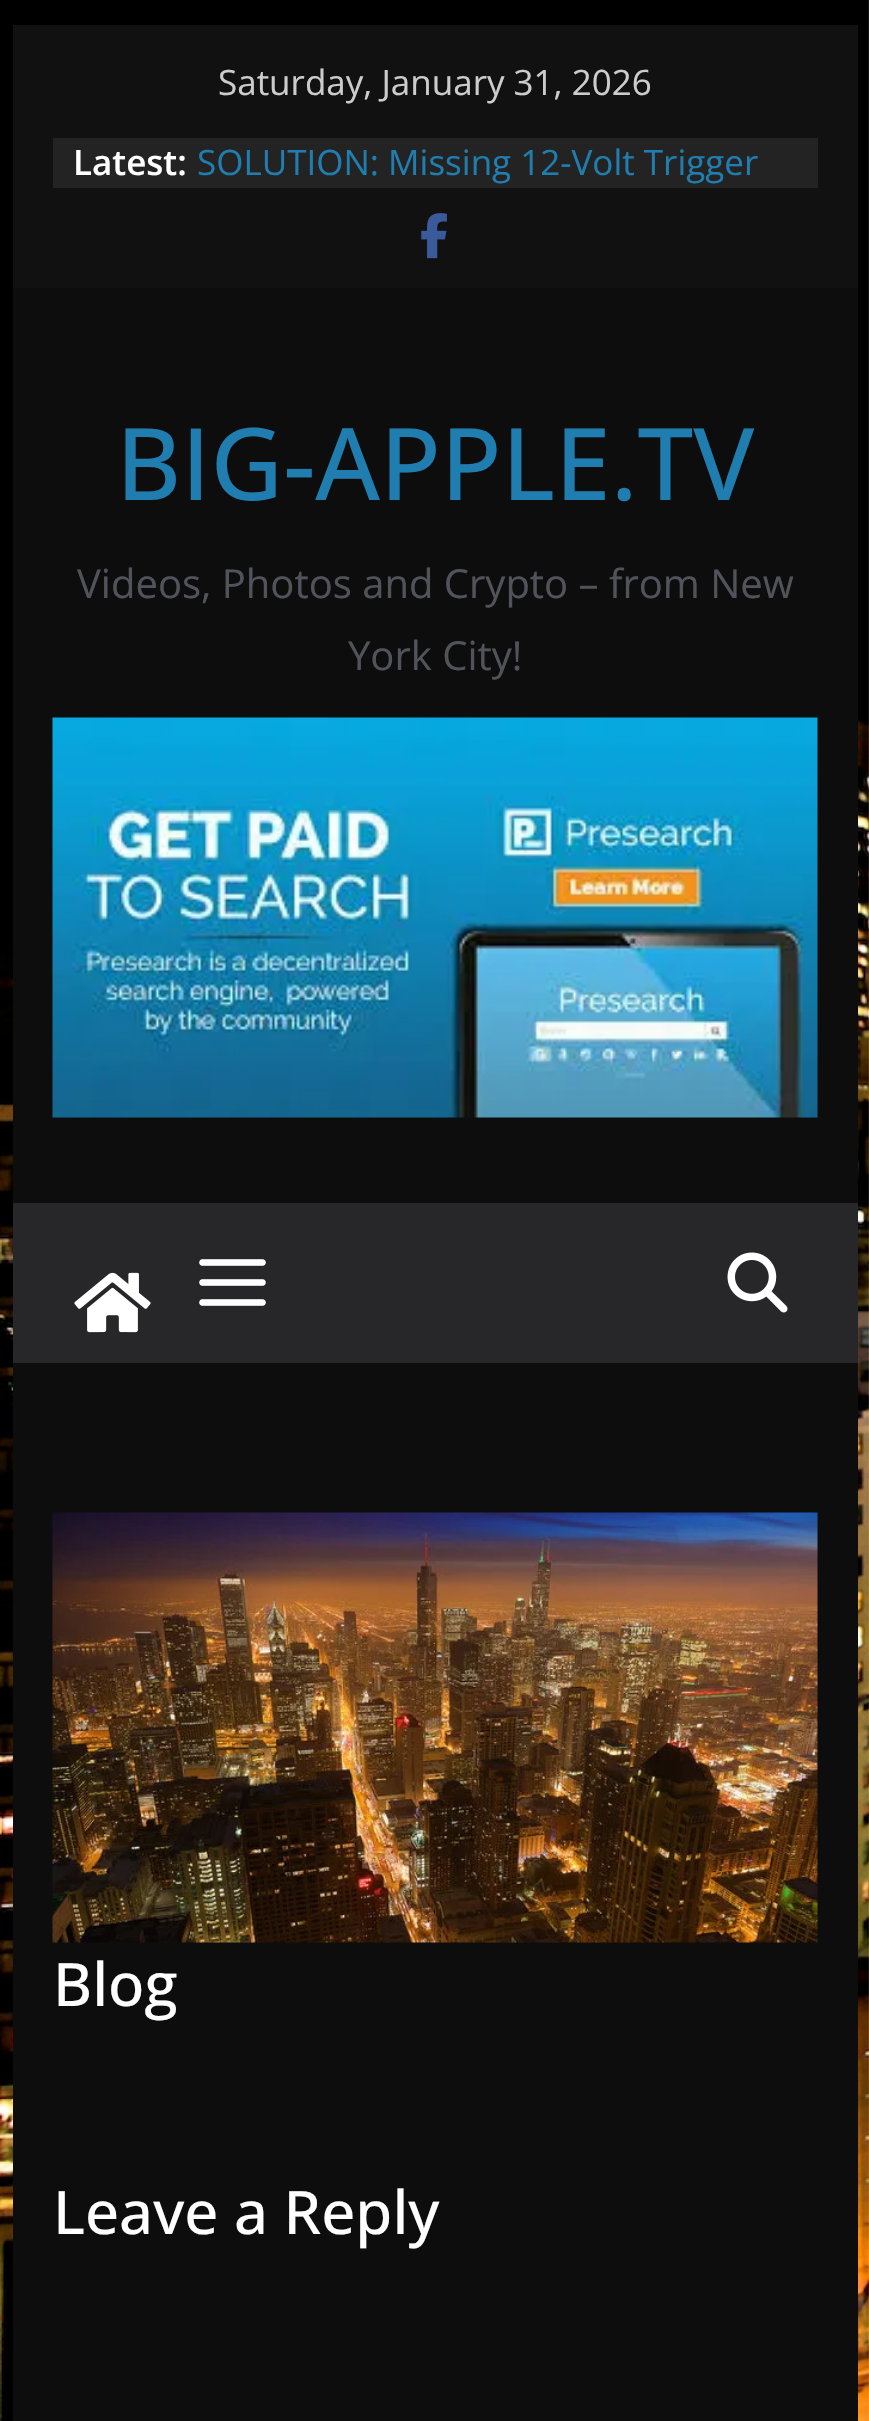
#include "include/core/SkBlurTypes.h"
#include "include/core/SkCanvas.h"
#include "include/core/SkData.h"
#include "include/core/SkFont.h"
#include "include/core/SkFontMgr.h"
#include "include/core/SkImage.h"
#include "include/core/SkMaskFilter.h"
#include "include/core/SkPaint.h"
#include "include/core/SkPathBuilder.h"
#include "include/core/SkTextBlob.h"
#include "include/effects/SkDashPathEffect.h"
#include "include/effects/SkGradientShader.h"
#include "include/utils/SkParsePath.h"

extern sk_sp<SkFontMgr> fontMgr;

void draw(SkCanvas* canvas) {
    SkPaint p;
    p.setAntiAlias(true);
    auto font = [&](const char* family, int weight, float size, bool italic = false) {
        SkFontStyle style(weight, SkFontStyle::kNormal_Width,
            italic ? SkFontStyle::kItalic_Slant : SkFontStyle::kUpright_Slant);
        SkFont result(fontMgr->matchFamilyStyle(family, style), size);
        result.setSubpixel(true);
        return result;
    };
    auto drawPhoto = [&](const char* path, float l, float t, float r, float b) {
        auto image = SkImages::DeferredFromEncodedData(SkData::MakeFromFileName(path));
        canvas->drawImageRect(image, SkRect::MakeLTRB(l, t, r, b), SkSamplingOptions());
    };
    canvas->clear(0xFFFFFFFF);
    drawPhoto("media/1.png", 0, 0, 869, 2421);
    p.setColor(0xFF0D0D0D);
    canvas->drawRect(SkRect::MakeLTRB(13, 1363, 858, 2421), p);
    p.setColor(0xFF111111);
    canvas->drawRect(SkRect::MakeLTRB(13, 25, 858, 288), p);
    auto font1 = font("Open Sans", 400, 35);
    p.setColor(0xFFCCCCCC);
    canvas->drawString("Saturday, January 31, 2026", 218, 95, font1, p);
    p.setColor(0xFF232323);
    canvas->drawRect(SkRect::MakeLTRB(53, 138, 818, 188), p);
    auto font2 = font("Open Sans", 600, 35);
    p.setColor(0xFFFFFFFF);
    canvas->drawString("Latest:", 73, 175, font2, p);
    p.setColor(0xFF207DAF);
    canvas->drawString("SOLUTION: Missing 12-Volt Trigger", 197, 175, font1, p);
    drawPhoto("media/2.png", 421, 213, 447, 259);
    p.setColor(0xFF0D0D0D);
    canvas->drawRect(SkRect::MakeLTRB(13, 288, 858, 1203), p);
    auto font3 = font("Open Sans", 500, 100);
    p.setColor(0xFF207DAF);
    canvas->drawString("BIG-APPLE.TV", 116, 500, font3, p);
    auto font4 = font("Open Sans", 400, 40);
    p.setColor(0xFF52525B);
    canvas->drawString("Videos, Photos and Crypto – from New", 77, 598, font4, p);
    canvas->drawString("York City!", 348, 670, font4, p);
    drawPhoto("media/3.png", 52, 717, 818, 1118);
    p.setColor(0xFF27272A);
    canvas->drawRect(SkRect::MakeLTRB(13, 1203, 858, 1363), p);
    drawPhoto("media/4.png", 74, 1272, 151, 1333);
    drawPhoto("media/5.png", 199, 1259, 266, 1306);
    drawPhoto("media/6.png", 727, 1252, 788, 1313);
    drawPhoto("media/7.png", 52, 1512, 818, 1943);
    auto font5 = font("Open Sans", 500, 60);
    p.setColor(0xFFFFFFFF);
    canvas->drawString("Blog", 53, 2006, font5, p);
    canvas->drawString("Leave a Reply", 53, 2234, font5, p);
}
